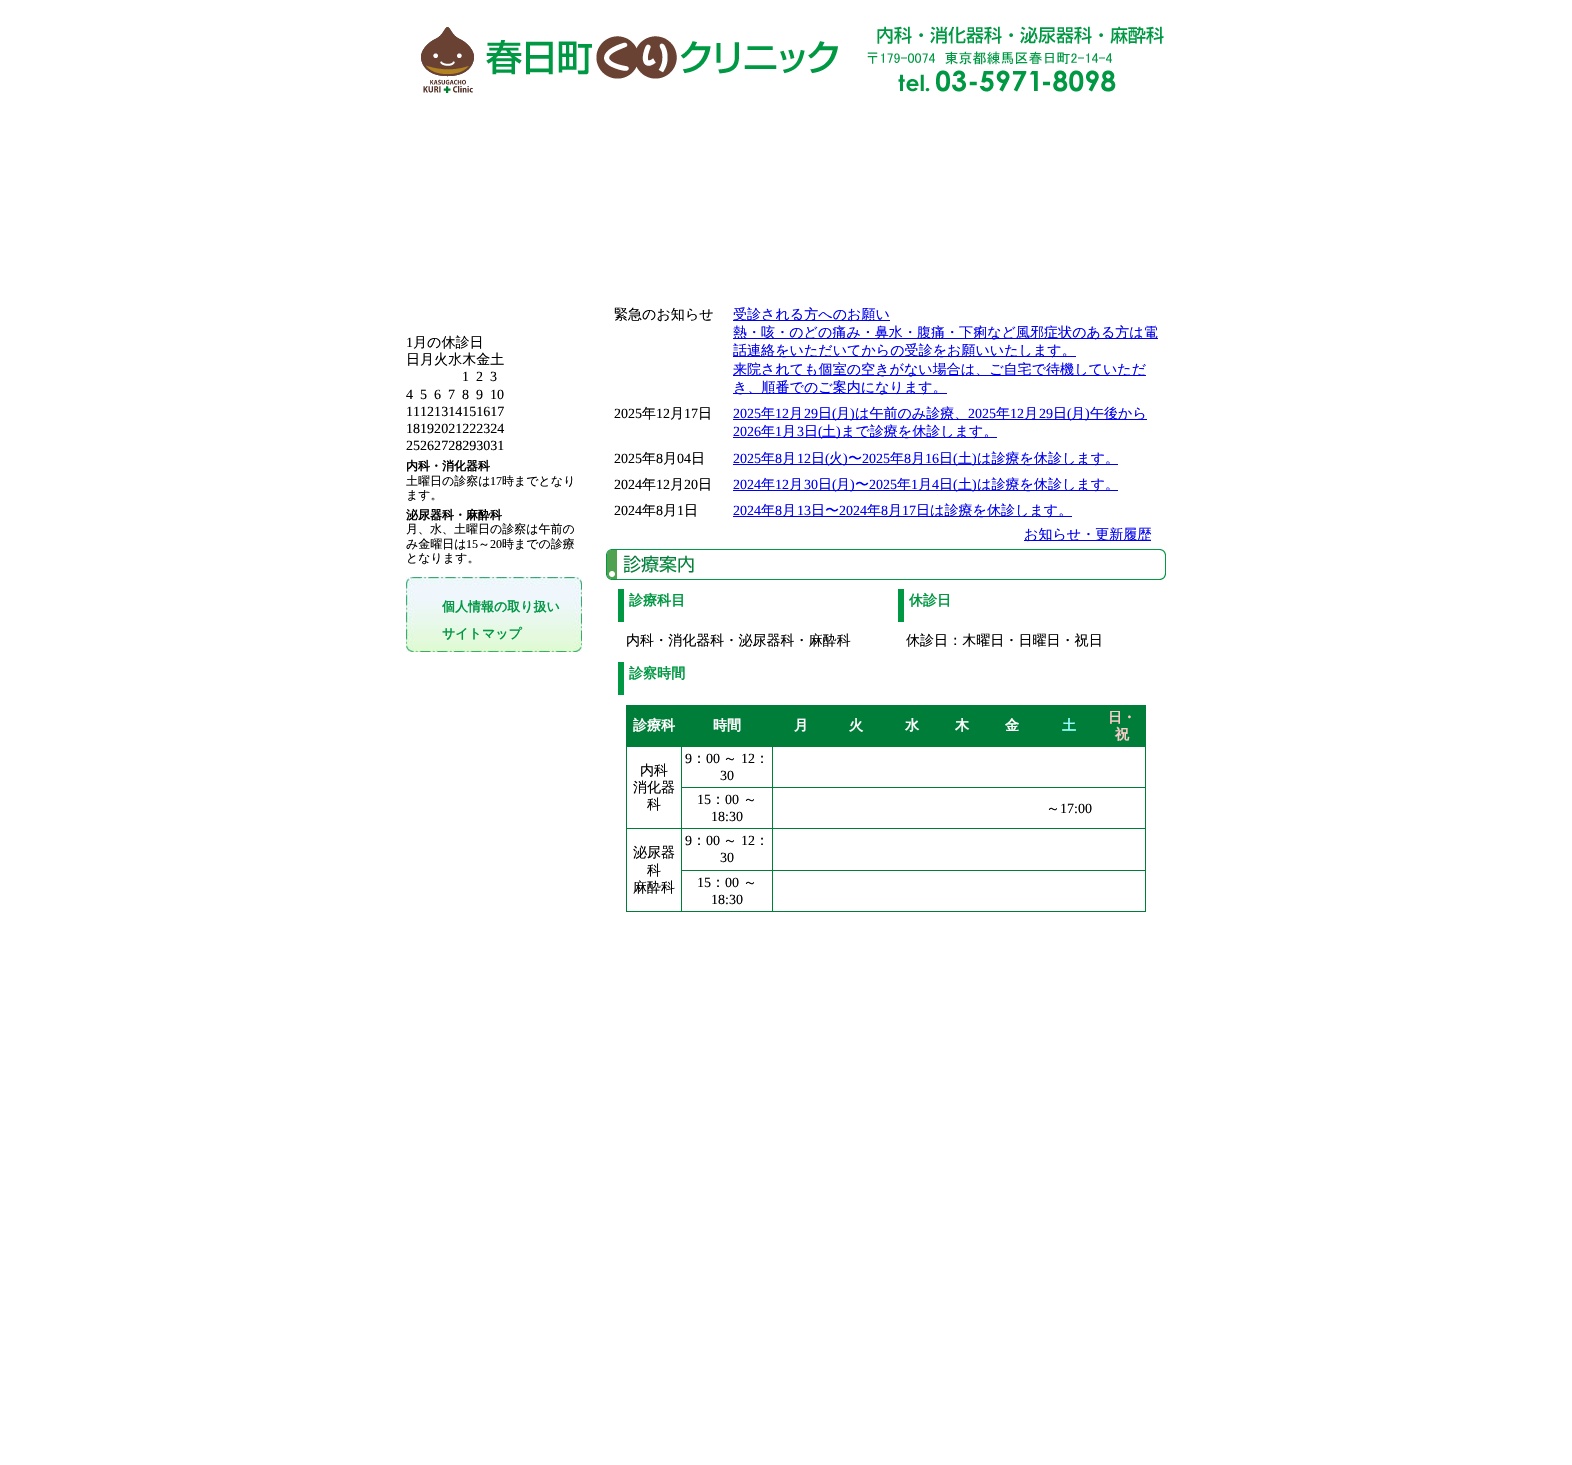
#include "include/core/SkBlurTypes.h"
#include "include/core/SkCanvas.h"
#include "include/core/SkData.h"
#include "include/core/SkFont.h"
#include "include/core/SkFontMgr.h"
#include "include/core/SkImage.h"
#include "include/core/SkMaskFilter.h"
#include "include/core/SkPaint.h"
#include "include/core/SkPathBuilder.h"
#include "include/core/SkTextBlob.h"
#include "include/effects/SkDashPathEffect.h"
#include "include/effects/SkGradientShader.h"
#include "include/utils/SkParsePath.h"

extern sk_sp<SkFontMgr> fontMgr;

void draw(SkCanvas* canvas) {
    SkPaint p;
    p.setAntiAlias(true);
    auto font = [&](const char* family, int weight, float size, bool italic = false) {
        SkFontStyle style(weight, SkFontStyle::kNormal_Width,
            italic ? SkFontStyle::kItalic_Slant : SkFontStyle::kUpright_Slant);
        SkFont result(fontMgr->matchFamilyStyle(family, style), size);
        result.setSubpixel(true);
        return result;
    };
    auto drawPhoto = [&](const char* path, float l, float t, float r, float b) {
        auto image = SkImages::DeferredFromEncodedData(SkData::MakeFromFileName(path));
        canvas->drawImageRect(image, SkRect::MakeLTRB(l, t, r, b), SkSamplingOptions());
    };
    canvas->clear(0xFFFFFFFF);
    drawPhoto("media/1.png", 421, 27, 838, 93);
    drawPhoto("media/2.png", 877, 26, 1164, 44);
    drawPhoto("media/3.png", 867, 51, 1116, 92);
    auto font1 = font("Liberation Serif", 400, 14.05f);
    p.setColor(0xFF000000);
    canvas->drawString("1", 406, 347, font1, p);
    auto font2 = font("WenQuanYi Zen Hei", 500, 14.05f);
    canvas->drawString("月の休診日", 413, 347, font2, p);
    canvas->drawString("日月火水木金土", 406, 364, font2, p);
    {
        const struct { const char* s; float x, y; } items[] = {
            {"1", 462, 381},
            {"2", 476, 381},
            {"3", 490, 381},
            {"4", 406, 399},
            {"5", 420, 399},
            {"6", 434, 399},
            {"7", 448, 399},
            {"8", 462, 399},
            {"9", 476, 399},
            {"10", 490, 399},
            {"11121314151617", 406, 416},
            {"18192021222324", 406, 433},
            {"25262728293031", 406, 450},
        };
        for (auto [s, x, y] : items) {
            canvas->drawString(s, x, y, font1, p);
        }
    }
    auto font3 = font("WenQuanYi Zen Hei", 700, 12);
    canvas->drawString("内科・消化器科", 406, 470, font3, p);
    auto font4 = font("WenQuanYi Zen Hei", 500, 12);
    canvas->drawString("土曜日の診察は", 406, 485, font4, p);
    auto font5 = font("Liberation Serif", 400, 12);
    canvas->drawString("17", 490, 485, font5, p);
    canvas->drawString("時までとなり", 502, 485, font4, p);
    canvas->drawString("ます。", 406, 499, font4, p);
    canvas->drawString("泌尿器科・麻酔科", 406, 519, font3, p);
    canvas->drawString("月、水、土曜日の診察は午前の", 406, 533, font4, p);
    canvas->drawString("み金曜日は", 406, 548, font4, p);
    canvas->drawString("15", 466, 548, font5, p);
    canvas->drawString("～", 478, 548, font4, p);
    canvas->drawString("20", 490, 548, font5, p);
    canvas->drawString("時までの診療", 502, 548, font4, p);
    canvas->drawString("となります。", 406, 562, font4, p);
    drawPhoto("media/4.png", 406, 577, 582, 652);
    auto font6 = font("WenQuanYi Zen Hei", 700, 13);
    p.setColor(0xFF009843);
    canvas->drawString("個人情報の取り扱い", 442, 611, font6, p);
    canvas->drawString("サイトマップ", 442, 638, font6, p);
    p.setColor(0xFF000000);
    canvas->drawString("緊急のお知らせ", 614, 319, font2, p);
    p.setColor(0xFF0000EE);
    canvas->drawRect(SkRect::MakeLTRB(733, 320, 890, 321), p);
    canvas->drawString("受診される方へのお願い", 733, 319, font2, p);
    canvas->drawRect(SkRect::MakeLTRB(733, 338, 1158, 339), p);
    canvas->drawString("熱・咳・のどの痛み・鼻水・腹痛・下痢など風邪症状のある方は電", 733, 337, font2, p);
    canvas->drawRect(SkRect::MakeLTRB(733, 356, 1076, 357), p);
    canvas->drawString("話連絡をいただいてからの受診をお願いいたします。", 733, 355, font2, p);
    canvas->drawRect(SkRect::MakeLTRB(733, 375, 1146, 376), p);
    canvas->drawString("来院されても個室の空きがない場合は、ご自宅で待機していただ", 733, 374, font2, p);
    canvas->drawRect(SkRect::MakeLTRB(733, 393, 947, 394), p);
    canvas->drawString("き、順番でのご案内になります。", 733, 392, font2, p);
    p.setColor(0xFF000000);
    canvas->drawString("2025", 614, 418, font1, p);
    canvas->drawString("年", 642, 418, font2, p);
    canvas->drawString("12", 656, 418, font1, p);
    canvas->drawString("月", 670, 418, font2, p);
    canvas->drawString("17", 684, 418, font1, p);
    canvas->drawString("日", 698, 418, font2, p);
    p.setColor(0xFF0000EE);
    canvas->drawString("2025", 733, 418, font1, p);
    canvas->drawRect(SkRect::MakeLTRB(733, 419, 1147, 420), p);
    canvas->drawString("年", 761, 418, font2, p);
    canvas->drawString("12", 775, 418, font1, p);
    canvas->drawString("月", 789, 418, font2, p);
    canvas->drawString("29", 804, 418, font1, p);
    canvas->drawString("日", 818, 418, font2, p);
    canvas->drawString("(", 832, 418, font1, p);
    canvas->drawString("月", 836, 418, font2, p);
    canvas->drawString(")", 850, 418, font1, p);
    canvas->drawString("は午前のみ診療、", 855, 418, font2, p);
    canvas->drawString("2025", 968, 418, font1, p);
    canvas->drawString("年", 996, 418, font2, p);
    canvas->drawString("12", 1010, 418, font1, p);
    canvas->drawString("月", 1024, 418, font2, p);
    canvas->drawString("29", 1039, 418, font1, p);
    canvas->drawString("日", 1053, 418, font2, p);
    canvas->drawString("(", 1067, 418, font1, p);
    canvas->drawString("月", 1071, 418, font2, p);
    canvas->drawString(")", 1085, 418, font1, p);
    canvas->drawString("午後から", 1090, 418, font2, p);
    canvas->drawString("2026", 733, 436, font1, p);
    canvas->drawRect(SkRect::MakeLTRB(733, 437, 997, 438), p);
    canvas->drawString("年", 761, 436, font2, p);
    canvas->drawString("1", 775, 436, font1, p);
    canvas->drawString("月", 782, 436, font2, p);
    canvas->drawString("3", 797, 436, font1, p);
    canvas->drawString("日", 804, 436, font2, p);
    canvas->drawString("(", 818, 436, font1, p);
    canvas->drawString("土", 822, 436, font2, p);
    canvas->drawString(")", 836, 436, font1, p);
    canvas->drawString("まで診療を休診します。", 841, 436, font2, p);
    p.setColor(0xFF000000);
    canvas->drawString("2025", 614, 463, font1, p);
    canvas->drawString("年", 642, 463, font2, p);
    canvas->drawString("8", 656, 463, font1, p);
    canvas->drawString("月", 663, 463, font2, p);
    canvas->drawString("04", 677, 463, font1, p);
    canvas->drawString("日", 691, 463, font2, p);
    p.setColor(0xFF0000EE);
    canvas->drawString("2025", 733, 463, font1, p);
    canvas->drawRect(SkRect::MakeLTRB(733, 464, 1118, 465), p);
    canvas->drawString("年", 761, 463, font2, p);
    canvas->drawString("8", 775, 463, font1, p);
    canvas->drawString("月", 782, 463, font2, p);
    canvas->drawString("12", 797, 463, font1, p);
    canvas->drawString("日", 811, 463, font2, p);
    canvas->drawString("(", 825, 463, font1, p);
    canvas->drawString("火", 829, 463, font2, p);
    canvas->drawString(")", 843, 463, font1, p);
    canvas->drawString("〜", 848, 463, font2, p);
    canvas->drawString("2025", 862, 463, font1, p);
    canvas->drawString("年", 890, 463, font2, p);
    canvas->drawString("8", 904, 463, font1, p);
    canvas->drawString("月", 911, 463, font2, p);
    canvas->drawString("16", 925, 463, font1, p);
    canvas->drawString("日", 939, 463, font2, p);
    canvas->drawString("(", 953, 463, font1, p);
    canvas->drawString("土", 958, 463, font2, p);
    canvas->drawString(")", 972, 463, font1, p);
    canvas->drawString("は診療を休診します。", 977, 463, font2, p);
    p.setColor(0xFF000000);
    canvas->drawString("2024", 614, 489, font1, p);
    canvas->drawString("年", 642, 489, font2, p);
    canvas->drawString("12", 656, 489, font1, p);
    canvas->drawString("月", 670, 489, font2, p);
    canvas->drawString("20", 684, 489, font1, p);
    canvas->drawString("日", 698, 489, font2, p);
    p.setColor(0xFF0000EE);
    canvas->drawString("2024", 733, 489, font1, p);
    canvas->drawRect(SkRect::MakeLTRB(733, 490, 1118, 491), p);
    canvas->drawString("年", 761, 489, font2, p);
    canvas->drawString("12", 775, 489, font1, p);
    canvas->drawString("月", 789, 489, font2, p);
    canvas->drawString("30", 804, 489, font1, p);
    canvas->drawString("日", 818, 489, font2, p);
    canvas->drawString("(", 832, 489, font1, p);
    canvas->drawString("月", 836, 489, font2, p);
    canvas->drawString(")", 850, 489, font1, p);
    canvas->drawString("〜", 855, 489, font2, p);
    canvas->drawString("2025", 869, 489, font1, p);
    canvas->drawString("年", 897, 489, font2, p);
    canvas->drawString("1", 911, 489, font1, p);
    canvas->drawString("月", 918, 489, font2, p);
    canvas->drawString("4", 932, 489, font1, p);
    canvas->drawString("日", 939, 489, font2, p);
    canvas->drawString("(", 953, 489, font1, p);
    canvas->drawString("土", 958, 489, font2, p);
    canvas->drawString(")", 972, 489, font1, p);
    canvas->drawString("は診療を休診します。", 977, 489, font2, p);
    p.setColor(0xFF000000);
    canvas->drawString("2024", 614, 515, font1, p);
    canvas->drawString("年", 642, 515, font2, p);
    canvas->drawString("8", 656, 515, font1, p);
    canvas->drawString("月", 663, 515, font2, p);
    canvas->drawString("1", 677, 515, font1, p);
    canvas->drawString("日", 684, 515, font2, p);
    p.setColor(0xFF0000EE);
    canvas->drawString("2024", 733, 515, font1, p);
    canvas->drawRect(SkRect::MakeLTRB(733, 516, 1072, 517), p);
    canvas->drawString("年", 761, 515, font2, p);
    canvas->drawString("8", 775, 515, font1, p);
    canvas->drawString("月", 782, 515, font2, p);
    canvas->drawString("13", 797, 515, font1, p);
    canvas->drawString("日〜", 811, 515, font2, p);
    canvas->drawString("2024", 839, 515, font1, p);
    canvas->drawString("年", 867, 515, font2, p);
    canvas->drawString("8", 881, 515, font1, p);
    canvas->drawString("月", 888, 515, font2, p);
    canvas->drawString("17", 902, 515, font1, p);
    canvas->drawString("日は診療を休診します。", 916, 515, font2, p);
    canvas->drawRect(SkRect::MakeLTRB(1024, 540, 1151, 541), p);
    canvas->drawString("お知らせ・更新履歴", 1024, 539, font2, p);
    drawPhoto("media/5.png", 606, 549, 1166, 580);
    p.setColor(0xFF009843);
    canvas->drawRect(SkRect::MakeLTRB(618, 589, 624, 622), p);
    auto font7 = font("WenQuanYi Zen Hei", 700, 14.05f);
    canvas->drawString("診療科目", 629, 605, font7, p);
    p.setColor(0xFF000000);
    canvas->drawString("内科・消化器科・泌尿器科・麻酔科", 626, 645, font2, p);
    p.setColor(0xFF009843);
    canvas->drawRect(SkRect::MakeLTRB(898, 589, 904, 622), p);
    canvas->drawString("休診日", 909, 605, font7, p);
    p.setColor(0xFF000000);
    canvas->drawString("休診日：木曜日・日曜日・祝日", 906, 645, font2, p);
    p.setColor(0xFF009843);
    canvas->drawRect(SkRect::MakeLTRB(618, 662, 624, 695), p);
    canvas->drawString("診察時間", 629, 678, font7, p);
    {
        const struct { float l, t, r, b; SkColor color; } items[] = {
            {626, 705, 1146, 706, 0xFF007D38},
            {1145, 705, 1146, 912, 0xFF007D38},
            {626, 705, 627, 912, 0xFF007D38},
            {627, 706, 1145, 746, 0xFF007D38},
        };
        for (auto [l, t, r, b, color] : items) {
            p.setColor(color);
            canvas->drawRect(SkRect::MakeLTRB(l, t, r, b), p);
        }
    }
    p.setColor(0xFFFFFFFF);
    {
        const struct { const char* s; float x, y; } items[] = {
            {"診療科", 633, 730},
            {"時間", 713, 730},
            {"月", 794, 730},
            {"火", 849, 730},
            {"水", 905, 730},
            {"木", 955, 730},
            {"金", 1005, 730},
        };
        for (auto [s, x, y] : items) {
            canvas->drawString(s, x, y, font7, p);
        }
    }
    p.setColor(0xFF99FFFF);
    canvas->drawString("土", 1062, 730, font7, p);
    {
        const struct { float l, t, r, b; SkColor color; } items[] = {
            {772, 911, 1146, 912, 0xFF007D38},
            {772, 870, 773, 912, 0xFF007D38},
            {772, 870, 1146, 871, 0xFF007D38},
            {772, 828, 773, 871, 0xFF007D38},
            {772, 828, 1146, 829, 0xFF007D38},
            {772, 787, 773, 829, 0xFF007D38},
            {772, 787, 1146, 788, 0xFF007D38},
            {772, 746, 773, 788, 0xFF007D38},
            {681, 787, 773, 788, 0xFF007D38},
            {681, 870, 773, 871, 0xFF007D38},
            {681, 911, 773, 912, 0xFF007D38},
            {681, 828, 682, 912, 0xFF007D38},
            {681, 828, 773, 829, 0xFF007D38},
            {681, 746, 682, 829, 0xFF007D38},
            {626, 746, 1146, 747, 0xFF007D38},
        };
        for (auto [l, t, r, b, color] : items) {
            p.setColor(color);
            canvas->drawRect(SkRect::MakeLTRB(l, t, r, b), p);
        }
    }
    p.setColor(0xFFFFCCCC);
    canvas->drawString("日・", 1108, 722, font7, p);
    canvas->drawString("祝", 1115, 739, font7, p);
    p.setColor(0xFF007D38);
    canvas->drawRect(SkRect::MakeLTRB(626, 828, 682, 829), p);
    p.setColor(0xFF000000);
    {
        const struct { const char* s; float x, y; } items[] = {
            {"内科", 640, 775},
            {"消化器", 633, 792},
            {"科", 647, 809},
        };
        for (auto [s, x, y] : items) {
            canvas->drawString(s, x, y, font2, p);
        }
    }
    canvas->drawString("9", 685, 763, font1, p);
    canvas->drawString("：", 692, 763, font2, p);
    canvas->drawString("00", 706, 763, font1, p);
    canvas->drawString("～", 723, 763, font2, p);
    canvas->drawString("12", 741, 763, font1, p);
    canvas->drawString("：", 755, 763, font2, p);
    canvas->drawString("30", 720, 780, font1, p);
    canvas->drawString("15", 697, 804, font1, p);
    canvas->drawString("：", 711, 804, font2, p);
    canvas->drawString("00", 725, 804, font1, p);
    canvas->drawString("～", 743, 804, font2, p);
    canvas->drawString("18:30", 711, 821, font1, p);
    canvas->drawString("～", 1046, 813, font2, p);
    canvas->drawString("17:00", 1060, 813, font1, p);
    p.setColor(0xFF007D38);
    canvas->drawRect(SkRect::MakeLTRB(626, 911, 682, 912), p);
    p.setColor(0xFF000000);
    {
        const struct { const char* s; float x, y; } items[] = {
            {"泌尿器", 633, 857},
            {"科", 647, 875},
            {"麻酔科", 633, 892},
        };
        for (auto [s, x, y] : items) {
            canvas->drawString(s, x, y, font2, p);
        }
    }
    canvas->drawString("9", 685, 845, font1, p);
    canvas->drawString("：", 692, 845, font2, p);
    canvas->drawString("00", 706, 845, font1, p);
    canvas->drawString("～", 723, 845, font2, p);
    canvas->drawString("12", 741, 845, font1, p);
    canvas->drawString("：", 755, 845, font2, p);
    canvas->drawString("30", 720, 862, font1, p);
    canvas->drawString("15", 697, 887, font1, p);
    canvas->drawString("：", 711, 887, font2, p);
    canvas->drawString("00", 725, 887, font1, p);
    canvas->drawString("～", 743, 887, font2, p);
    canvas->drawString("18:30", 711, 904, font1, p);
}
